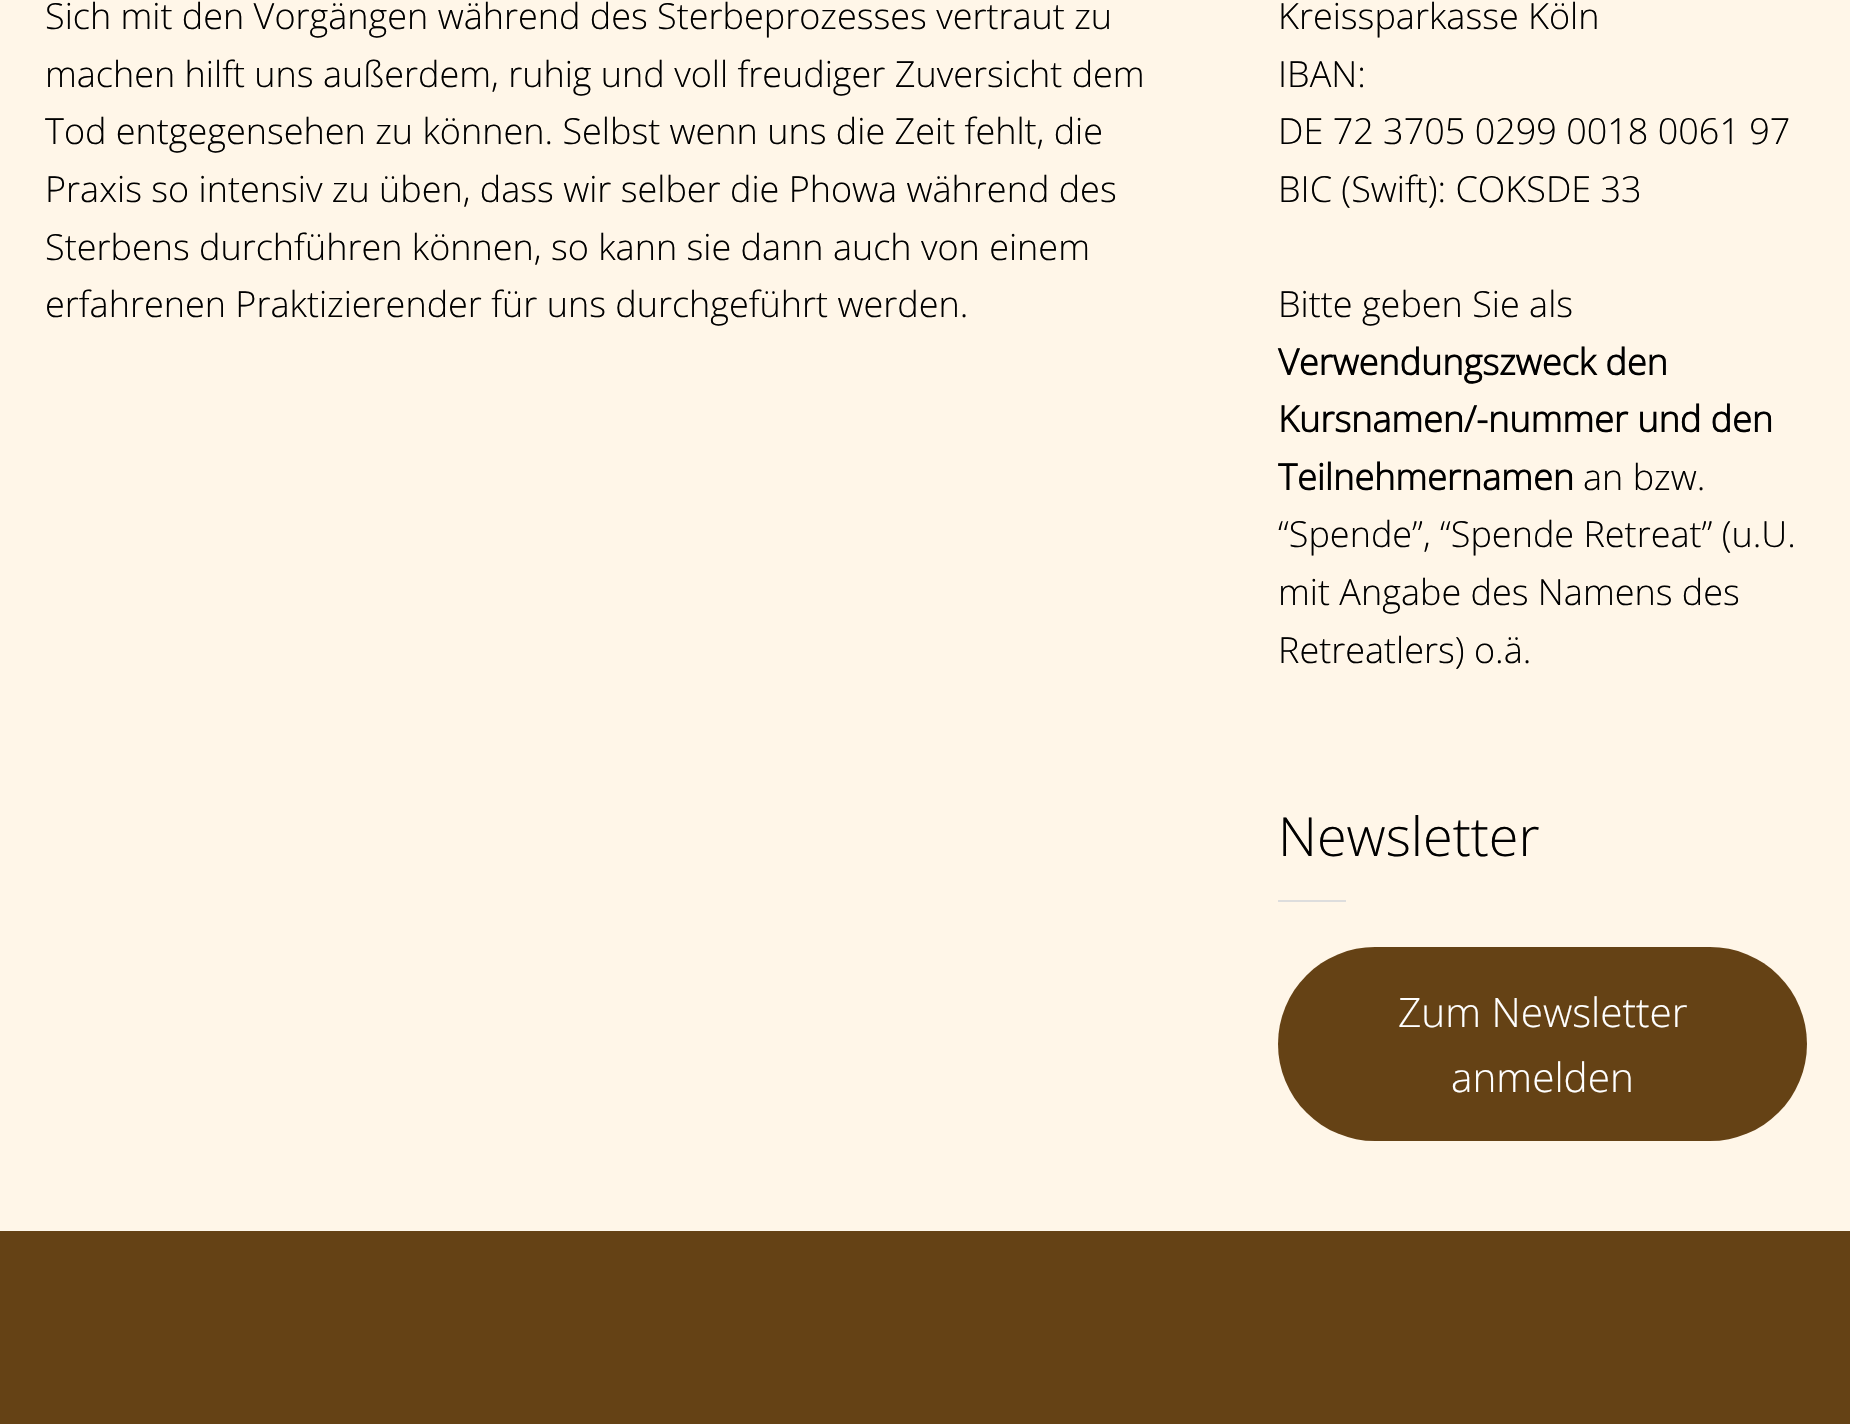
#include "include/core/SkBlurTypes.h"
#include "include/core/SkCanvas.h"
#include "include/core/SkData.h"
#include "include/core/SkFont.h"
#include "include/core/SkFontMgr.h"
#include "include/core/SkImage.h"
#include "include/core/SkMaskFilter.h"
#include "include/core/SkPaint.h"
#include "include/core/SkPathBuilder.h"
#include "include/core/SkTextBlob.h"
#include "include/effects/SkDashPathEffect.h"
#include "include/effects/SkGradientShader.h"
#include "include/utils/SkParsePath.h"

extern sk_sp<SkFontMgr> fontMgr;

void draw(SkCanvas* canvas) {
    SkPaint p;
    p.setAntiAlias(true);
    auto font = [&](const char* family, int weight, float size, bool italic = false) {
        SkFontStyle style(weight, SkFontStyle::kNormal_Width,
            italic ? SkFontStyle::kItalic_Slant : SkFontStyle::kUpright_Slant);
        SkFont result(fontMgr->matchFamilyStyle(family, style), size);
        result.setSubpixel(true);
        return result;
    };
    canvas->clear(0xFFFFF6E8);
    auto font1 = font("Open Sans", 300, 36);
    p.setColor(0xFF000000);
    {
        const struct { const char* s; float x, y; } items[] = {
            {"Sich mit den Vorgängen während des Sterbeprozesses vertraut zu", 45, 29},
            {"machen hilft uns außerdem, ruhig und voll freudiger Zuversicht dem", 45, 87},
            {"Tod entgegensehen zu können. Selbst wenn uns die Zeit fehlt, die", 45, 144},
            {"Praxis so intensiv zu üben, dass wir selber die Phowa während des", 45, 202},
            {"Sterbens durchführen können, so kann sie dann auch von einem", 45, 260},
            {"erfahrenen Praktizierender für uns durchgeführt werden.", 45, 317},
            {"Kreissparkasse Köln", 1278, 29},
            {"IBAN:", 1278, 87},
            {"DE 72 3705 0299 0018 0061 97", 1278, 144},
            {"BIC (Swift): COKSDE 33", 1278, 202},
            {"Bitte geben Sie als", 1278, 317},
        };
        for (auto [s, x, y] : items) {
            canvas->drawString(s, x, y, font1, p);
        }
    }
    auto font2 = font("Open Sans", 700, 36);
    {
        const struct { const char* s; float x, y; } items[] = {
            {"Verwendungszweck den", 1278, 375},
            {"Kursnamen/-nummer und den", 1278, 432},
            {"Teilnehmernamen", 1278, 490},
        };
        for (auto [s, x, y] : items) {
            canvas->drawString(s, x, y, font2, p);
        }
    }
    {
        const struct { const char* s; float x, y; } items[] = {
            {"an bzw.", 1583, 490},
            {"“Spende”, “Spende Retreat” (u.U.", 1278, 547},
            {"mit Angabe des Namens des", 1278, 605},
            {"Retreatlers) o.ä.", 1278, 663},
        };
        for (auto [s, x, y] : items) {
            canvas->drawString(s, x, y, font1, p);
        }
    }
    auto font3 = font("Open Sans", 300, 54);
    canvas->drawString("Newsletter", 1278, 856, font3, p);
    p.setColor(0xFFDDDDDD);
    canvas->drawRect(SkRect::MakeLTRB(1278, 900, 1346, 902), p);
    p.setColor(0xFF654215);
    canvas->drawRoundRect(SkRect::MakeLTRB(1278, 947, 1807, 1141), 97, 97, p);
    auto font4 = font("Open Sans", 300, 40.5f);
    p.setColor(0xFFFFFFFF);
    canvas->drawString("Zum Newsletter", 1398, 1027, font4, p);
    canvas->drawString("anmelden", 1451, 1092, font4, p);
    p.setColor(0xFF654215);
    canvas->drawRect(SkRect::MakeLTRB(0, 1231, 1850, 1424), p);
}
